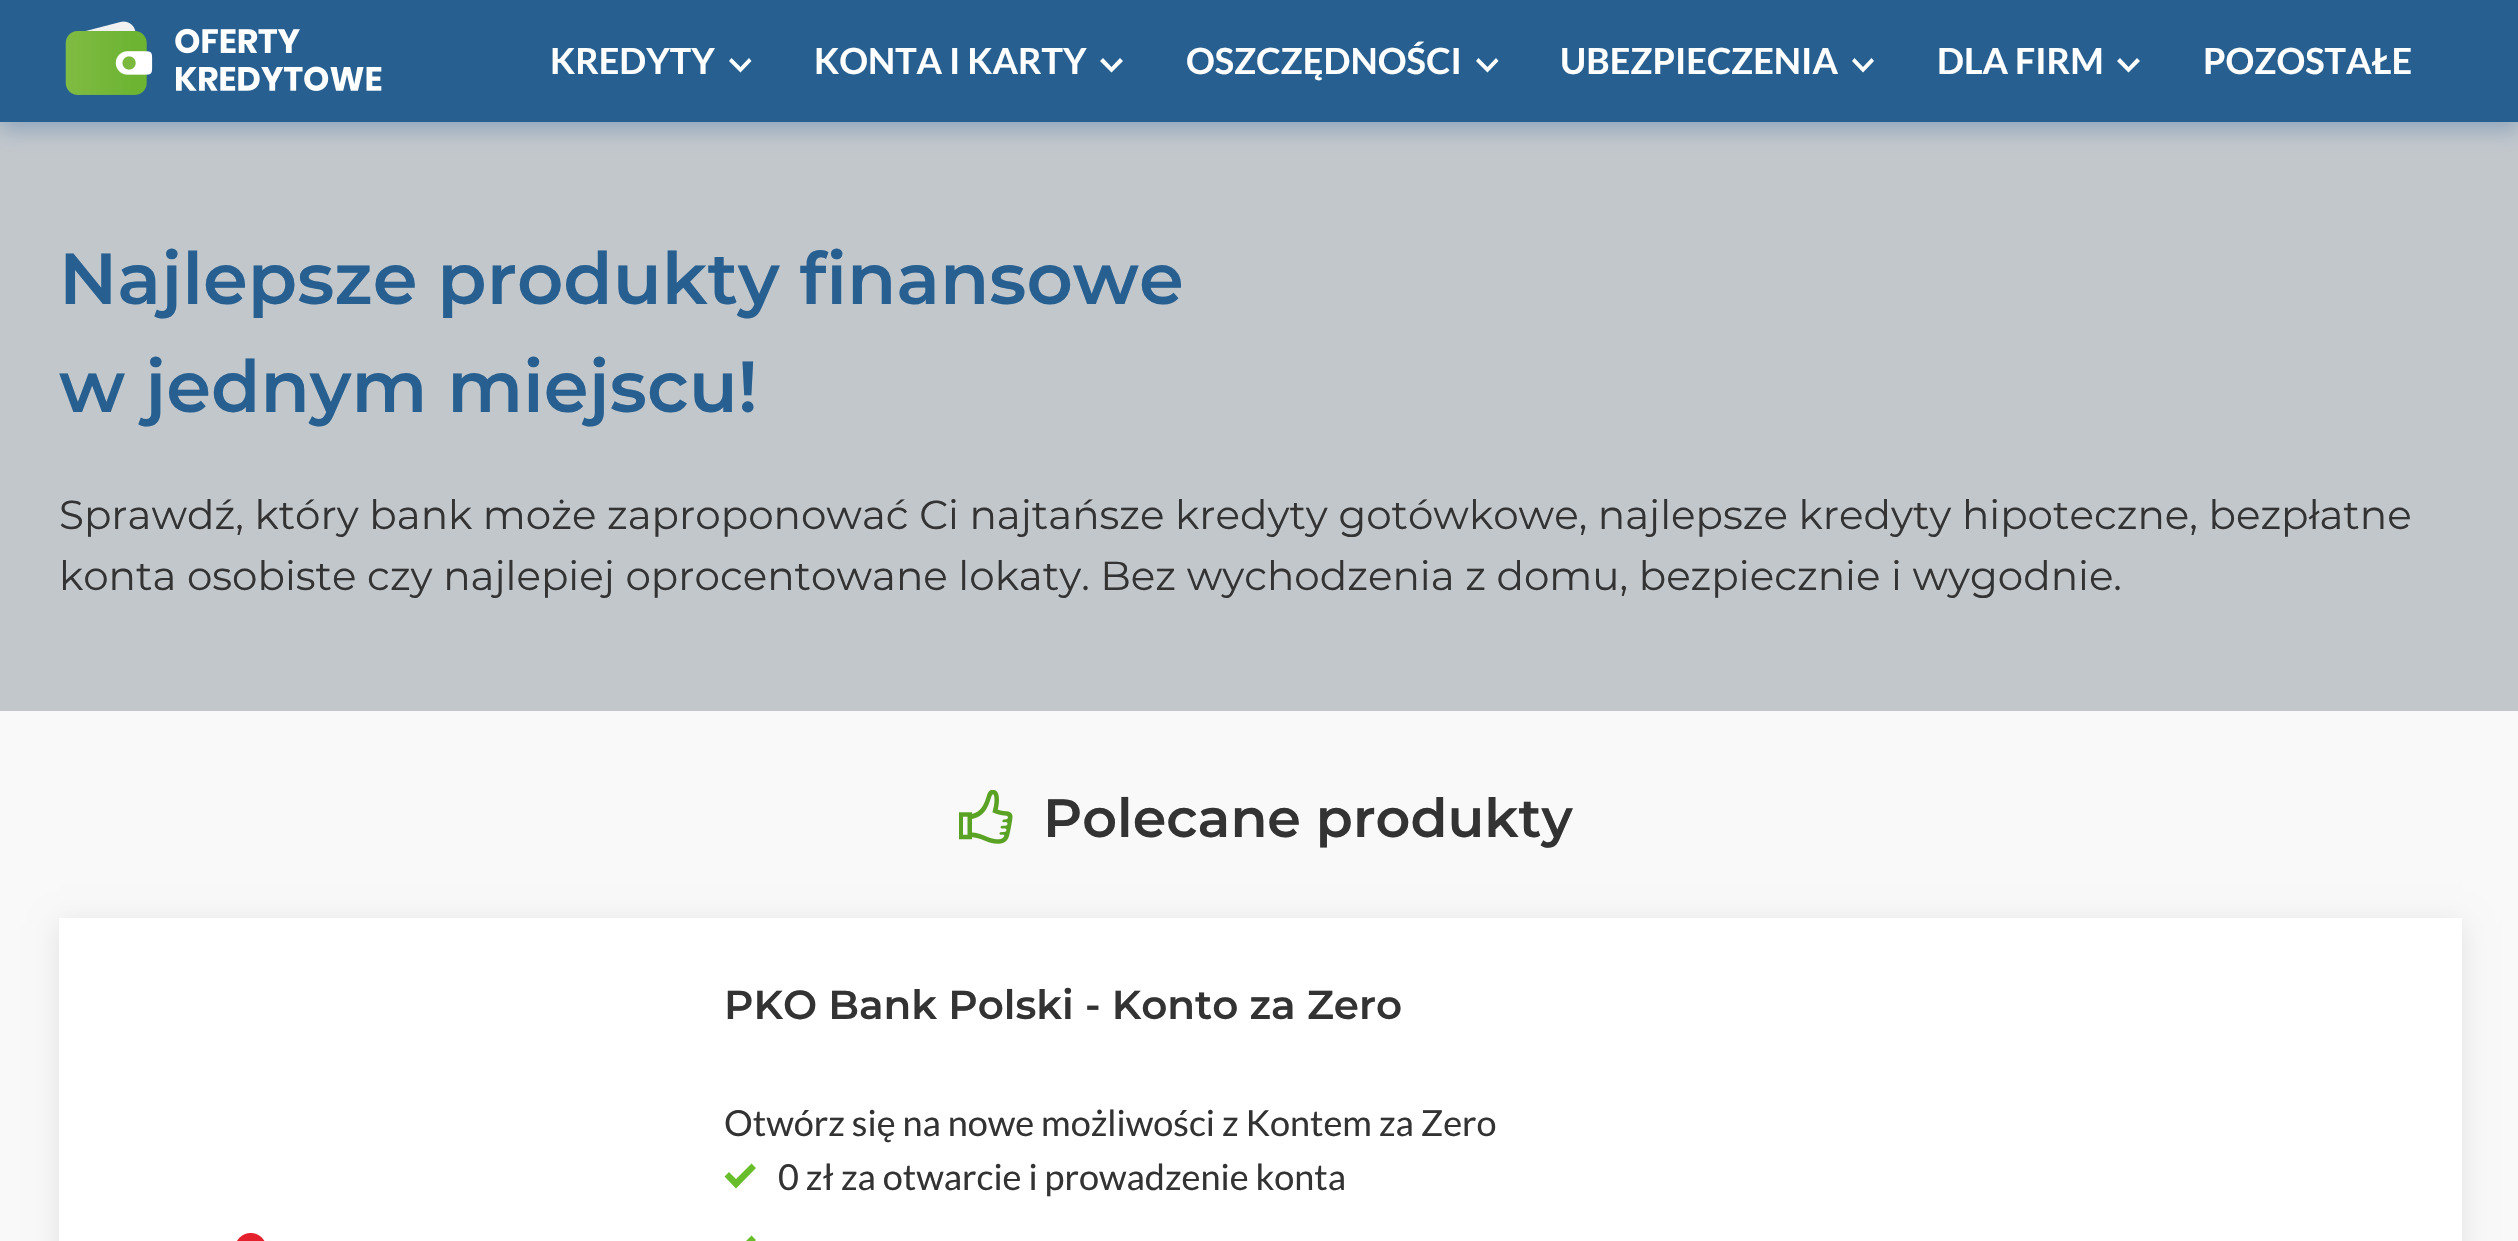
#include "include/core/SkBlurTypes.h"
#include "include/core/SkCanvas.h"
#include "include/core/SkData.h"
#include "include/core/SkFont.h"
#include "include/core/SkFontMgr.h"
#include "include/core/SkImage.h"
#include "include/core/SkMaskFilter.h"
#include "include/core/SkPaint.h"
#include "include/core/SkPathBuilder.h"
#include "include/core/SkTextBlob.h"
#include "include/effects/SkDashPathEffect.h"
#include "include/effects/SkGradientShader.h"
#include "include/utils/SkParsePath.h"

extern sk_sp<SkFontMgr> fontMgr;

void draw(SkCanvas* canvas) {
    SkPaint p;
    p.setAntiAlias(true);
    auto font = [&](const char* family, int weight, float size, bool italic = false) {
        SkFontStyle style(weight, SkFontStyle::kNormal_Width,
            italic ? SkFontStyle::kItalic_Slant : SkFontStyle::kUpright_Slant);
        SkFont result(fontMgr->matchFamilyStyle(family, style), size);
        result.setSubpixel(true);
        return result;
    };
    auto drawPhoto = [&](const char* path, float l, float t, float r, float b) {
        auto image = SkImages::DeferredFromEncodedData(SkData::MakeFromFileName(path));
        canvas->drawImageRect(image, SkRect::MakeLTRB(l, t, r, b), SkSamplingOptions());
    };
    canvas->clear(0xFFC2C7CC);
    p.setColor(0x6127609A);
    p.setMaskFilter(SkMaskFilter::MakeBlur(kNormal_SkBlurStyle, 11));
    canvas->drawRect(SkRect::MakeLTRB(0, 7, 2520, 128), p);
    p.setMaskFilter(nullptr);
    p.setColor(0xFF276090);
    canvas->drawRect(SkRect::MakeLTRB(0, 0, 2518, 122), p);
    drawPhoto("media/1.png", 65, 21, 382, 95);
    auto font1 = font("Lato", 700, 36);
    p.setColor(0xFFFFFFFF);
    canvas->drawString("KREDYTY", 550, 74, font1, p);
    canvas->drawPath(SkPathBuilder().moveTo(729, 61).lineTo(731.5f, 58).lineTo(740.5f, 67).lineTo(749, 58).lineTo(751.5f, 61).lineTo(740.5f, 72.5f).close().detach(), p);
    canvas->drawString("KONTA I KARTY", 814, 74, font1, p);
    canvas->drawPath(SkPathBuilder().moveTo(1100, 61).lineTo(1103, 58).lineTo(1111.5f, 67).lineTo(1120, 58).lineTo(1123, 61).lineTo(1111.5f, 72.5f).close().detach(), p);
    canvas->drawString("OSZCZĘDNOŚCI", 1186, 74, font1, p);
    canvas->drawPath(SkPathBuilder().moveTo(1476, 61).lineTo(1478.5f, 58).lineTo(1487.5f, 67).lineTo(1496, 58).lineTo(1498.5f, 61).lineTo(1487.5f, 72.5f).close().detach(), p);
    canvas->drawString("UBEZPIECZENIA", 1560, 74, font1, p);
    canvas->drawPath(SkPathBuilder().moveTo(1852, 61).lineTo(1854.5f, 58).lineTo(1863, 67).lineTo(1871.5f, 58).lineTo(1874, 61).lineTo(1863, 72.5f).close().detach(), p);
    canvas->drawString("DLA FIRM", 1937, 74, font1, p);
    canvas->drawPath(SkPathBuilder().moveTo(2117, 61).lineTo(2120, 58).lineTo(2128.5f, 67).lineTo(2137, 58).lineTo(2140, 61).lineTo(2128.5f, 72.5f).close().detach(), p);
    canvas->drawString("POZOSTAŁE", 2203, 74, font1, p);
    auto font2 = font("Montserrat", 600, 72);
    p.setColor(0xFF276090);
    canvas->drawString("Najlepsze produkty finansowe", 59, 304, font2, p);
    canvas->drawString("w jednym miejscu!", 59, 412, font2, p);
    auto font3 = font("Montserrat", 400, 40.5f);
    p.setColor(0xFF333333);
    canvas->drawString("Sprawdź, który bank może zaproponować Ci najtańsze kredyty gotówkowe, najlepsze kredyty hipoteczne, bezpłatne", 59, 529, font3, p);
    canvas->drawString("konta osobiste czy najlepiej oprocentowane lokaty. Bez wychodzenia z domu, bezpiecznie i wygodnie.", 59, 590, font3, p);
    p.setColor(0xFFF9F9F9);
    canvas->drawRect(SkRect::MakeLTRB(0, 711, 2518, 1241), p);
    drawPhoto("media/2.png", 959, 790, 1013, 844);
    auto font4 = font("Montserrat", 600, 54);
    p.setColor(0xFF333333);
    canvas->drawString("Polecane produkty", 1043, 837, font4, p);
    p.setColor(0xFFE1E1E1);
    p.setMaskFilter(SkMaskFilter::MakeBlur(kNormal_SkBlurStyle, 13.5f));
    canvas->drawRect(SkRect::MakeLTRB(59, 923, 2462, 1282), p);
    p.setMaskFilter(nullptr);
    p.setColor(0xFFFFFFFF);
    canvas->drawRect(SkRect::MakeLTRB(59, 918, 2462, 1241), p);
    auto font5 = font("Montserrat", 600, 40.5f);
    p.setColor(0xFF333333);
    canvas->drawString("PKO Bank Polski - Konto za Zero", 724, 1019, font5, p);
    auto font6 = font("Lato", 400, 36);
    canvas->drawString("Otwórz się na nowe możliwości z Kontem za Zero", 724, 1136, font6, p);
    p.setColor(0xFF68BD2B);
    canvas->drawPath(SkPathBuilder(SkPathFillType::kEvenOdd).moveTo(751.5f, 1163.5f).lineTo(756, 1168).lineTo(736, 1188.5f).lineTo(724.5f, 1176.5f).lineTo(729, 1172).lineTo(736, 1179).close().detach(), p);
    p.setColor(0xFF333333);
    canvas->drawString("0 zł za otwarcie i prowadzenie konta", 778, 1190, font6, p);
    p.setColor(0xFF68BD2B);
    canvas->drawPath(SkPathBuilder(SkPathFillType::kEvenOdd).moveTo(751.5f, 1235.5f).lineTo(756, 1240).lineTo(736, 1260.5f).lineTo(724.5f, 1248.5f).lineTo(729, 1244).lineTo(736, 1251).close().detach(), p);
    drawPhoto("media/3.png", 237, 1233, 265, 1241);
}
